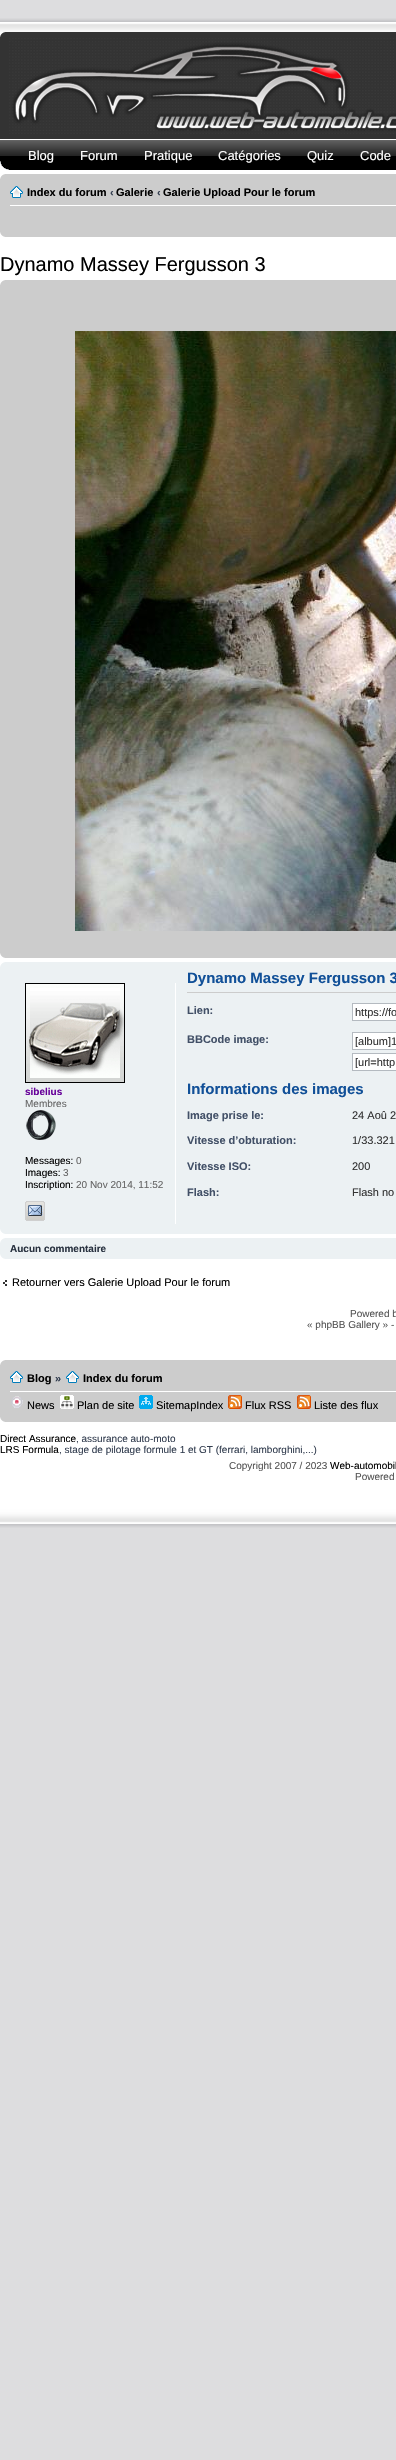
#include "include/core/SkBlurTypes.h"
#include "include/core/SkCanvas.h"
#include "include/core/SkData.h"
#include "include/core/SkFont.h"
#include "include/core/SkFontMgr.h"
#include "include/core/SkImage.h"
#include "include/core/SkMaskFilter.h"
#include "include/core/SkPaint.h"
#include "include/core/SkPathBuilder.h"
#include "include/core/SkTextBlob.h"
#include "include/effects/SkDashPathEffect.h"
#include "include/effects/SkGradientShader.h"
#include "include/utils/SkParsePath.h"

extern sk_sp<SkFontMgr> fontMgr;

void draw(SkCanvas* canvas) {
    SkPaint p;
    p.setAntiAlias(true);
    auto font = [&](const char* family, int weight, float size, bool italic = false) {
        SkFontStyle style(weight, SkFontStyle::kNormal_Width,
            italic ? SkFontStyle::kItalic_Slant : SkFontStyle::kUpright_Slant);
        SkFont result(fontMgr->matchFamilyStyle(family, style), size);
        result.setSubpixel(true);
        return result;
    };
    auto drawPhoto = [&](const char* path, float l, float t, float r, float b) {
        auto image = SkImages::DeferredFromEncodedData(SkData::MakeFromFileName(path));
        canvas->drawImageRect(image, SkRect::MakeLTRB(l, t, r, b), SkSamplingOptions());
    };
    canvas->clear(0xFFDDDDDF);
    drawPhoto("media/1.png", 0, 18, 396, 32);
    p.setColor(0xFFFFFFFF);
    canvas->drawRect(SkRect::MakeLTRB(0, 139, 396, 1509), p);
    p.setColor(0xFF333333);
    canvas->drawRect(SkRect::MakeLTRB(0, 32, 396, 139), p);
    drawPhoto("media/2.png", 0, 32, 6, 37);
    drawPhoto("media/3.png", 9, 38, 396, 134);
    drawPhoto("media/4.png", 0, 140, 396, 170);
    auto font1 = font("Liberation Sans", 400, 13);
    p.setColor(0xFFFFFFFF);
    {
        const struct { const char* s; float x, y; } items[] = {
            {"Blog", 28, 160},
            {"Forum", 80, 160},
            {"Pratique", 144, 160},
            {"Catégories", 218, 160},
            {"Quiz", 307, 160},
            {"Code", 360, 160},
        };
        for (auto [s, x, y] : items) {
            canvas->drawString(s, x, y, font1, p);
        }
    }
    drawPhoto("media/5.png", 0, 161, 9, 170);
    p.setColor(0xFFCCCCCC);
    canvas->drawRect(SkRect::MakeLTRB(0, 174, 396, 237), p);
    drawPhoto("media/6.png", 0, 174, 5, 179);
    p.setColor(0xFFFFFFFF);
    canvas->drawRect(SkRect::MakeLTRB(10, 205, 396, 206), p);
    drawPhoto("media/7.png", 10, 186, 23, 198);
    auto font2 = font("Liberation Sans", 700, 11);
    p.setColor(0xFF000000);
    canvas->drawString("Index du forum", 27, 196, font2, p);
    p.setColor(0xFF323D4F);
    canvas->drawString("‹", 110, 196, font2, p);
    p.setColor(0xFF000000);
    canvas->drawString("Galerie", 116, 196, font2, p);
    p.setColor(0xFF323D4F);
    canvas->drawString("‹", 157, 196, font2, p);
    p.setColor(0xFF000000);
    canvas->drawString("Galerie Upload Pour le forum", 163, 196, font2, p);
    drawPhoto("media/8.png", 0, 232, 5, 237);
    auto font3 = font("Liberation Sans", 400, 20);
    canvas->drawString("Dynamo Massey Fergusson 3", 0, 271, font3, p);
    p.setColor(0xFFCCCCCC);
    canvas->drawRect(SkRect::MakeLTRB(0, 280, 396, 958), p);
    drawPhoto("media/6.png", 0, 280, 5, 285);
    drawPhoto("media/9.png", 75, 331, 396, 931);
    drawPhoto("media/8.png", 0, 953, 5, 958);
    p.setColor(0xFFECF1F3);
    canvas->drawRect(SkRect::MakeLTRB(0, 962, 396, 1234), p);
    drawPhoto("media/10.png", 0, 962, 5, 967);
    p.setColor(0xFFFFFFFF);
    canvas->drawRect(SkRect::MakeLTRB(175, 983, 176, 1224), p);
    drawPhoto("media/11.png", 25, 983, 125, 1083);
    auto font4 = font("Liberation Sans", 700, 10);
    p.setColor(0xFF660099);
    canvas->drawString("sibelius", 25, 1095, font4, p);
    auto font5 = font("Liberation Sans", 400, 10);
    p.setColor(0xFF666666);
    canvas->drawString("Membres", 25, 1107, font5, p);
    drawPhoto("media/12.png", 26, 1110, 56, 1140);
    p.setColor(0xFF000000);
    canvas->drawString("Messages:", 25, 1164, font5, p);
    p.setColor(0xFF666666);
    canvas->drawString("0", 76, 1164, font5, p);
    p.setColor(0xFF000000);
    canvas->drawString("Images:", 25, 1176, font5, p);
    p.setColor(0xFF666666);
    canvas->drawString("3", 63, 1176, font5, p);
    p.setColor(0xFF000000);
    canvas->drawString("Inscription:", 25, 1188, font5, p);
    p.setColor(0xFF666666);
    canvas->drawString("20 Nov 2014, 11:52", 76, 1188, font5, p);
    drawPhoto("media/13.png", 25, 1201, 45, 1221);
    auto font6 = font("Liberation Sans", 700, 15);
    p.setColor(0xFF115098);
    canvas->drawString("Dynamo Massey Fergusson 3", 187, 983, font6, p);
    p.setColor(0xFFCCCCCC);
    canvas->drawRect(SkRect::MakeLTRB(187, 992, 396, 993), p);
    p.setColor(0xFF425067);
    canvas->drawString("Lien:", 187, 1014, font2, p);
    p.setColor(0xFFFFFFFF);
    canvas->drawRect(SkRect::MakeLTRB(352.5f, 1003.5f, 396.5f, 1020.5f), p);
    p.setStyle(SkPaint::kStroke_Style);
    p.setStrokeWidth(1);
    p.setColor(0xFFB4BAC0);
    canvas->drawRect(SkRect::MakeLTRB(352.5f, 1003.5f, 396.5f, 1020.5f), p);
    auto font7 = font("Liberation Sans", 400, 11);
    p.setStyle(SkPaint::kFill_Style);
    p.setColor(0xFF333333);
    canvas->drawString("https://fo", 355, 1016, font7, p);
    p.setColor(0xFF425067);
    canvas->drawString("BBCode image:", 187, 1043, font2, p);
    p.setColor(0xFFFFFFFF);
    canvas->drawRect(SkRect::MakeLTRB(352.5f, 1032.5f, 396.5f, 1049.5f), p);
    p.setStyle(SkPaint::kStroke_Style);
    p.setColor(0xFFB4BAC0);
    canvas->drawRect(SkRect::MakeLTRB(352.5f, 1032.5f, 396.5f, 1049.5f), p);
    canvas->save();
    canvas->clipRect(SkRect::MakeLTRB(355, 1035, 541, 1047));
    p.setStyle(SkPaint::kFill_Style);
    p.setColor(0xFF333333);
    canvas->drawString("[album]1", 355, 1045, font7, p);
    canvas->restore();
    p.setColor(0xFFFFFFFF);
    canvas->drawRect(SkRect::MakeLTRB(352.5f, 1053.5f, 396.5f, 1070.5f), p);
    p.setStyle(SkPaint::kStroke_Style);
    p.setColor(0xFFB4BAC0);
    canvas->drawRect(SkRect::MakeLTRB(352.5f, 1053.5f, 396.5f, 1070.5f), p);
    canvas->save();
    canvas->clipRect(SkRect::MakeLTRB(355, 1056, 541, 1068));
    p.setStyle(SkPaint::kFill_Style);
    p.setColor(0xFF333333);
    canvas->drawString("[url=http", 355, 1066, font7, p);
    canvas->restore();
    p.setColor(0xFF115098);
    canvas->drawString("Informations des images", 187, 1094, font6, p);
    p.setColor(0xFF425067);
    canvas->drawString("Image prise le:", 187, 1119, font2, p);
    p.setColor(0xFF333333);
    canvas->drawString("24 Aoû 2", 352, 1119, font7, p);
    p.setColor(0xFF425067);
    canvas->drawString("Vitesse d’obturation:", 187, 1144, font2, p);
    p.setColor(0xFF333333);
    canvas->drawString("1/33.321", 352, 1144, font7, p);
    p.setColor(0xFF425067);
    canvas->drawString("Vitesse ISO:", 187, 1170, font2, p);
    p.setColor(0xFF333333);
    canvas->drawString("200", 352, 1170, font7, p);
    p.setColor(0xFF425067);
    canvas->drawString("Flash:", 187, 1196, font2, p);
    p.setColor(0xFF333333);
    canvas->drawString("Flash no", 352, 1196, font7, p);
    drawPhoto("media/14.png", 0, 1229, 5, 1234);
    p.setColor(0xFFECF1F3);
    canvas->drawRect(SkRect::MakeLTRB(0, 1238, 396, 1259), p);
    drawPhoto("media/10.png", 0, 1238, 5, 1243);
    p.setColor(0xFF28313F);
    canvas->drawString("Aucun commentaire", 10, 1252, font4, p);
    drawPhoto("media/14.png", 0, 1254, 5, 1259);
    drawPhoto("media/15.png", 3, 1280, 7, 1286);
    p.setColor(0xFF000000);
    canvas->drawString("Retourner vers Galerie Upload Pour le forum", 12, 1286, font7, p);
    p.setColor(0xFF555555);
    canvas->drawString("Powered b", 350, 1317, font5, p);
    canvas->drawString("« phpBB Gallery » -", 307, 1328, font5, p);
    p.setColor(0xFFCCCCCC);
    canvas->drawRect(SkRect::MakeLTRB(0, 1360, 396, 1422), p);
    drawPhoto("media/6.png", 0, 1360, 5, 1365);
    p.setColor(0xFFFFFFFF);
    canvas->drawRect(SkRect::MakeLTRB(10, 1391, 396, 1392), p);
    drawPhoto("media/7.png", 10, 1371, 23, 1383);
    p.setColor(0xFF000000);
    canvas->drawString("Blog", 27, 1382, font2, p);
    p.setColor(0xFF323D4F);
    canvas->drawString("»", 55, 1382, font2, p);
    drawPhoto("media/7.png", 66, 1371, 79, 1383);
    p.setColor(0xFF000000);
    canvas->drawString("Index du forum", 83, 1382, font2, p);
    drawPhoto("media/16.png", 11, 1396, 23, 1408);
    canvas->drawString("News", 27, 1409, font7, p);
    drawPhoto("media/17.png", 60, 1395, 74, 1409);
    canvas->drawString("Plan de site", 77, 1409, font7, p);
    drawPhoto("media/18.png", 139, 1395, 153, 1409);
    canvas->drawString("SitemapIndex", 156, 1409, font7, p);
    drawPhoto("media/19.png", 228, 1395, 242, 1409);
    canvas->drawString("Flux RSS", 245, 1409, font7, p);
    drawPhoto("media/19.png", 297, 1395, 311, 1409);
    canvas->drawString("Liste des flux", 314, 1409, font7, p);
    drawPhoto("media/8.png", 0, 1417, 5, 1422);
    canvas->drawString("Direct Assurance", 0, 1442, font5, p);
    p.setColor(0xFF323D4F);
    canvas->drawString(", assurance auto-moto", 76, 1442, font5, p);
    p.setColor(0xFF000000);
    canvas->drawString("LRS Formula", 0, 1453, font5, p);
    p.setColor(0xFF323D4F);
    canvas->drawString(", stage de pilotage formule 1 et GT (ferrari, lamborghini,...)", 59, 1453, font5, p);
    p.setColor(0xFF555555);
    canvas->drawString("Copyright 2007 / 2023", 229, 1469, font5, p);
    p.setColor(0xFF000000);
    canvas->drawString("Web-automobil", 330, 1469, font5, p);
    p.setColor(0xFF555555);
    canvas->drawString("Powered", 355, 1480, font5, p);
    drawPhoto("media/20.png", 0, 1509, 396, 1528);
}
